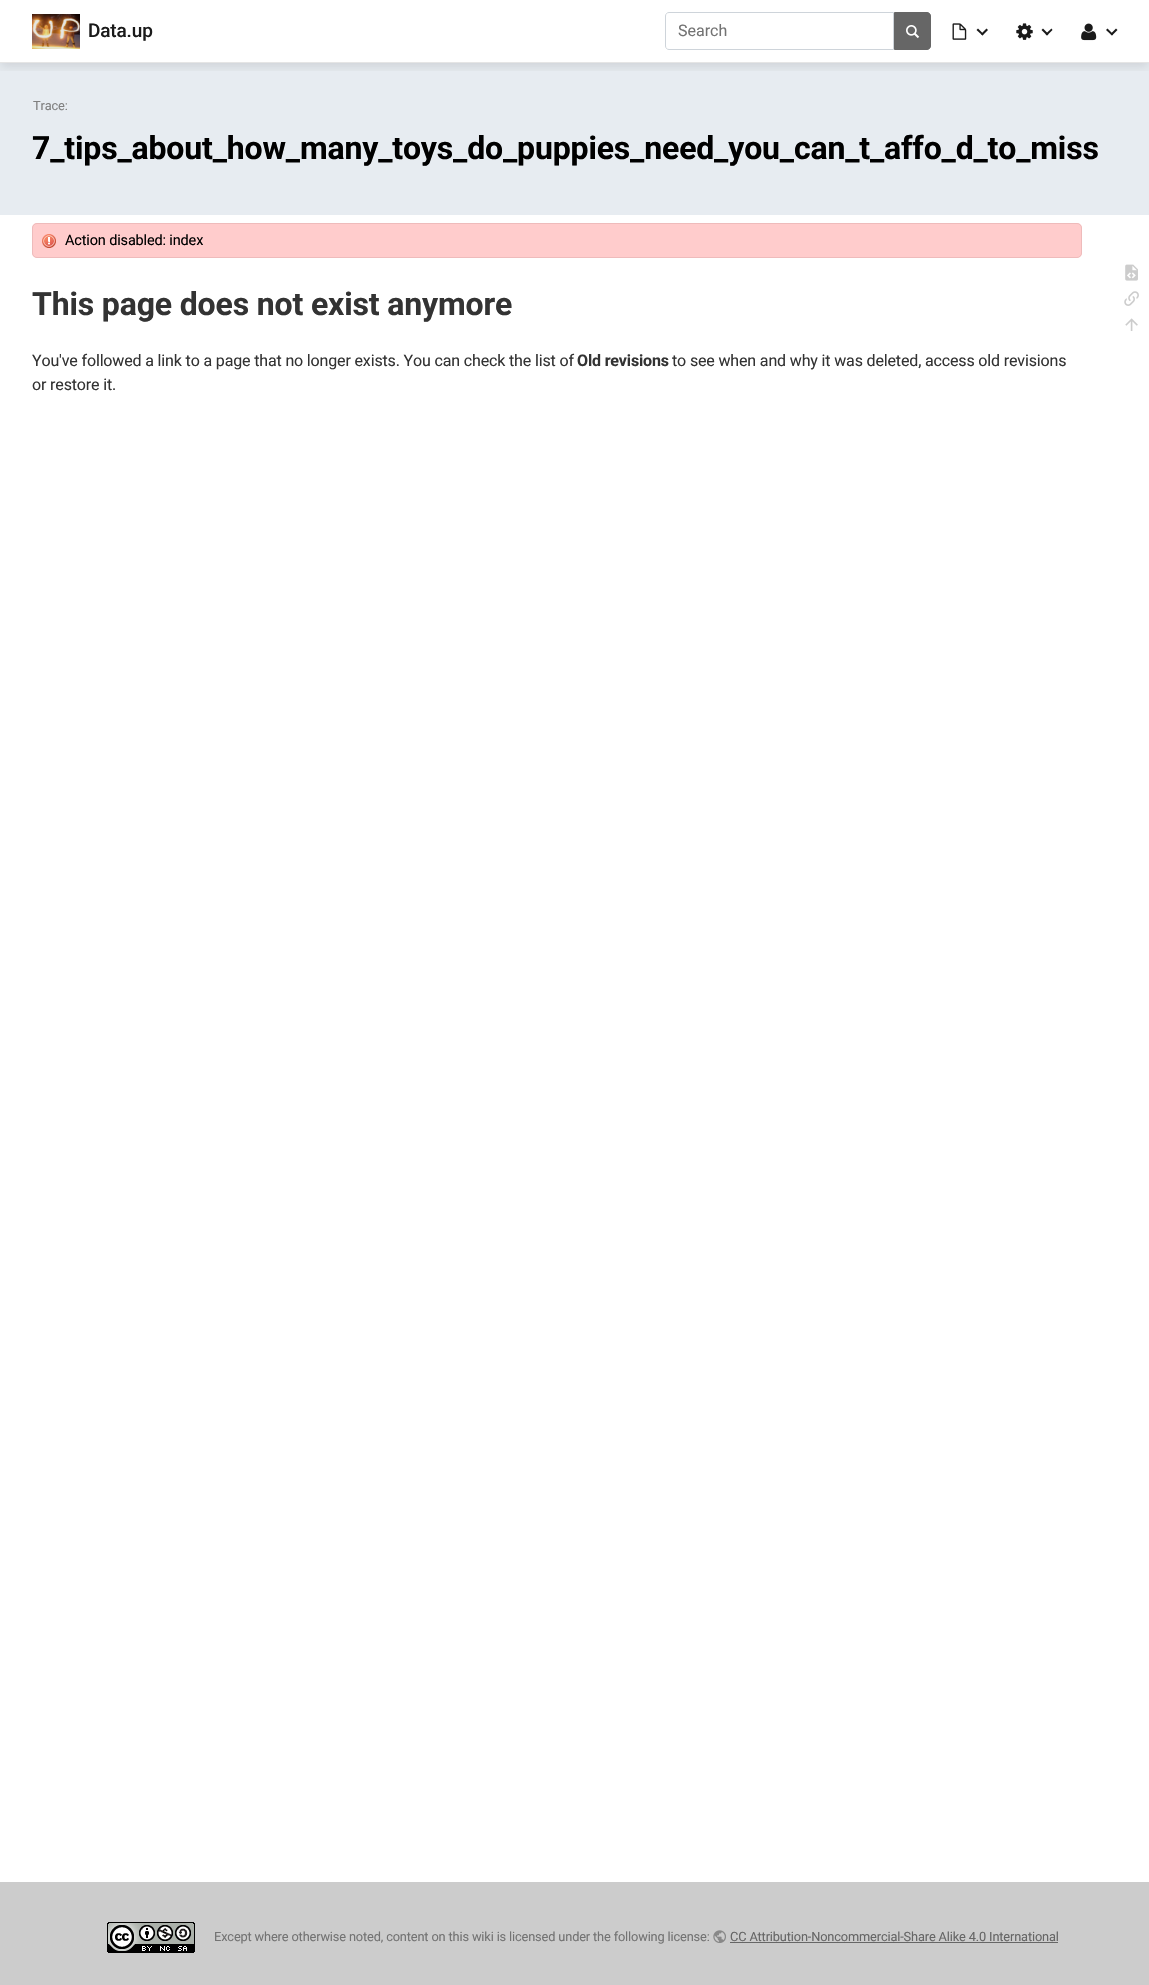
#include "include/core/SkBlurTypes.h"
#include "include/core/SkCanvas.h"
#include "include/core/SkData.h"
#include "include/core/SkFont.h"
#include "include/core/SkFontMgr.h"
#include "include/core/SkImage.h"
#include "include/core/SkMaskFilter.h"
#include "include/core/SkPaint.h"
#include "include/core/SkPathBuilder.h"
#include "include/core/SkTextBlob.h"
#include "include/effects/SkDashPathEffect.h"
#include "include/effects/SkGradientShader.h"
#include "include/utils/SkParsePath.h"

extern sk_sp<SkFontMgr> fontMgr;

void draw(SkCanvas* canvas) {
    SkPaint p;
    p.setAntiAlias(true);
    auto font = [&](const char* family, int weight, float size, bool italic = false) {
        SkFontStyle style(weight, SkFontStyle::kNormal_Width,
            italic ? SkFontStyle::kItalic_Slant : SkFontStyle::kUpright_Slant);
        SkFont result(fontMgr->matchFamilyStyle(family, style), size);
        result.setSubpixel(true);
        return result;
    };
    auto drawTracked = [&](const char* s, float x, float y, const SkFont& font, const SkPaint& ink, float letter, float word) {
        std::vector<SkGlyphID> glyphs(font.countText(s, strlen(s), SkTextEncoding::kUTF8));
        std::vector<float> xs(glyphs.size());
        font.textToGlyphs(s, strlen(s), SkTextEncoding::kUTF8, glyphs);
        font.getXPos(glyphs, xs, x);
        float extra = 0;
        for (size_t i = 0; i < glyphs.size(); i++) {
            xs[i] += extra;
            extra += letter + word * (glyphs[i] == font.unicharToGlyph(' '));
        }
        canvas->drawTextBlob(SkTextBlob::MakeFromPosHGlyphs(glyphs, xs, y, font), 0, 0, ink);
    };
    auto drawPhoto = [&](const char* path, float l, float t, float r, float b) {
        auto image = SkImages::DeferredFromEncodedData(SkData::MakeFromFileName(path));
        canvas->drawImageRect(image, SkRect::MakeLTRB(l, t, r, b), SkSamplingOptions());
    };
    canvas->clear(0xFFFFFFFF);
    p.setColor(0xFFE7ECF1);
    canvas->drawRect(SkRect::MakeLTRB(0, 63, 1149, 215), p);
    canvas->save();
    canvas->clipRect(SkRect::MakeLTRB(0, 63, 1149, 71));
    p.setColor(0x1A000000);
    p.setMaskFilter(SkMaskFilter::MakeBlur(kNormal_SkBlurStyle, 5));
    canvas->drawRect(SkRect::MakeLTRB(0, 4, 1149, 67), p);
    p.setMaskFilter(nullptr);
    canvas->restore();
    p.setColor(0xFFE5E5E5);
    canvas->drawRect(SkRect::MakeLTRB(0, 62, 1149, 63), p);
    drawPhoto("media/1.png", 32, 14, 80, 49);
    auto font1 = font("Roboto", 500, 19);
    p.setColor(0xFF1A1A1A);
    drawTracked("Data.up", 88, 37, font1, p, -0.15f, 0);
    p.setStyle(SkPaint::kStroke_Style);
    p.setStrokeWidth(1);
    p.setColor(0xFFCED4DA);
    canvas->drawPath(SkPathBuilder().moveTo(669, 12.5f).lineTo(893.5f, 12.5f).lineTo(893.5f, 49.5f).lineTo(669, 49.5f).cubicTo(667, 49.5f, 665.5f, 48, 665.5f, 46).lineTo(665.5f, 16).cubicTo(665.5f, 14, 667, 12.5f, 669, 12.5f).close().detach(), p);
    auto font2 = font("Roboto", 400, 16);
    p.setStyle(SkPaint::kFill_Style);
    p.setColor(0xFF737373);
    canvas->drawString("Search", 678, 36, font2, p);
    p.setColor(0xFF666666);
    canvas->drawPath(SkPathBuilder().moveTo(894.5f, 12.5f).lineTo(927, 12.5f).cubicTo(929, 12.5f, 930.5f, 14, 930.5f, 16).lineTo(930.5f, 46).cubicTo(930.5f, 48, 929, 49.5f, 927, 49.5f).lineTo(894.5f, 49.5f).close().detach(), p);
    p.setStyle(SkPaint::kStroke_Style);
    canvas->drawPath(SkPathBuilder().moveTo(894.5f, 12.5f).lineTo(927, 12.5f).cubicTo(929, 12.5f, 930.5f, 14, 930.5f, 16).lineTo(930.5f, 46).cubicTo(930.5f, 48, 929, 49.5f, 927, 49.5f).lineTo(894.5f, 49.5f).close().detach(), p);
    drawPhoto("media/2.png", 906, 25, 920, 39);
    drawPhoto("media/3.png", 952, 23, 967, 40);
    p.setStyle(SkPaint::kFill_Style);
    p.setColor(0xFF1A1A1A);
    canvas->drawPath(SkPathBuilder().moveTo(981, 34).lineTo(986.5f, 28.5f).lineTo(988, 30).lineTo(982.5f, 35.5f).close().detach(), p);
    canvas->drawPath(SkPathBuilder().moveTo(976.5f, 30).lineTo(978, 28.5f).lineTo(983.5f, 34).lineTo(982.5f, 35.5f).close().detach(), p);
    drawPhoto("media/4.png", 1016, 23, 1033, 40);
    canvas->drawPath(SkPathBuilder().moveTo(1045.5f, 34).lineTo(1051.5f, 28.5f).lineTo(1052.5f, 30).lineTo(1047, 35.5f).close().detach(), p);
    canvas->drawPath(SkPathBuilder().moveTo(1041.5f, 30).lineTo(1043, 28.5f).lineTo(1048.5f, 34).lineTo(1047, 35.5f).close().detach(), p);
    drawPhoto("media/5.png", 1081, 23, 1097, 41);
    canvas->drawPath(SkPathBuilder().moveTo(1110.5f, 34).lineTo(1116, 28.5f).lineTo(1117.5f, 30).lineTo(1112, 35.5f).close().detach(), p);
    canvas->drawPath(SkPathBuilder().moveTo(1106, 30).lineTo(1107.5f, 28.5f).lineTo(1113, 34).lineTo(1112, 35.5f).close().detach(), p);
    auto font3 = font("Roboto", 400, 12.8f);
    p.setColor(0xFF808080);
    drawTracked("Trace:", 33, 110, font3, p, -0.15f, 0);
    auto font4 = font("Roboto", 700, 32);
    p.setColor(0xFF000000);
    drawTracked("7_tips_about_how_many_toys_do_puppies_need_you_can_t_affo_d_to_miss", 32, 159, font4, p, -0.15f, 0);
    p.setColor(0xFFFFCCCC);
    canvas->drawRoundRect(SkRect::MakeLTRB(32, 223, 1082, 258), 5, 5, p);
    drawPhoto("media/6.png", 42, 234, 56, 248);
    p.setStyle(SkPaint::kStroke_Style);
    p.setColor(0xFFEEBBBB);
    canvas->drawRoundRect(SkRect::MakeLTRB(32.5f, 223.5f, 1081.5f, 257.5f), 4.5f, 4.5f, p);
    auto font5 = font("Roboto", 400, 14.5f);
    p.setStyle(SkPaint::kFill_Style);
    p.setColor(0xFF000000);
    drawTracked("Action disabled: index", 65, 245, font5, p, -0.15f, 0);
    p.setColor(0xFF333333);
    drawTracked("This page does not exist anymore", 32, 315, font4, p, -0.15f, 0);
    drawTracked("You've followed a link to a page that no longer exists. You can check the list of", 32, 366, font2, p, -0.15f, 0);
    auto font6 = font("Roboto", 700, 16);
    drawTracked("Old revisions", 577, 366, font6, p, -0.15f, 0);
    drawTracked("to see when and why it was deleted, access old revisions", 672, 366, font2, p, -0.15f, 0);
    drawTracked("or restore it.", 32, 390, font2, p, -0.15f, 0);
    drawPhoto("media/7.png", 1125, 264, 1138, 281);
    drawPhoto("media/8.png", 1124, 291, 1139, 306);
    drawPhoto("media/9.png", 1125, 318, 1138, 331);
    p.setColor(0xFFCCCCCC);
    canvas->drawRect(SkRect::MakeLTRB(0, 1882, 1149, 1985), p);
    drawPhoto("media/10.png", 107, 1922, 195, 1953);
    p.setColor(0xFF737373);
    drawTracked("Except where otherwise noted, content on this wiki is licensed under the following license:", 214, 1941, font3, p, -0.15f, 0);
    drawPhoto("media/11.png", 713, 1930, 726, 1943);
    p.setColor(0xFF666666);
    drawTracked("CC Attribution-Noncommercial-Share Alike 4.0 International", 730, 1941, font3, p, -0.15f, 0);
    canvas->drawRect(SkRect::MakeLTRB(730, 1942, 1058, 1943), p);
}
